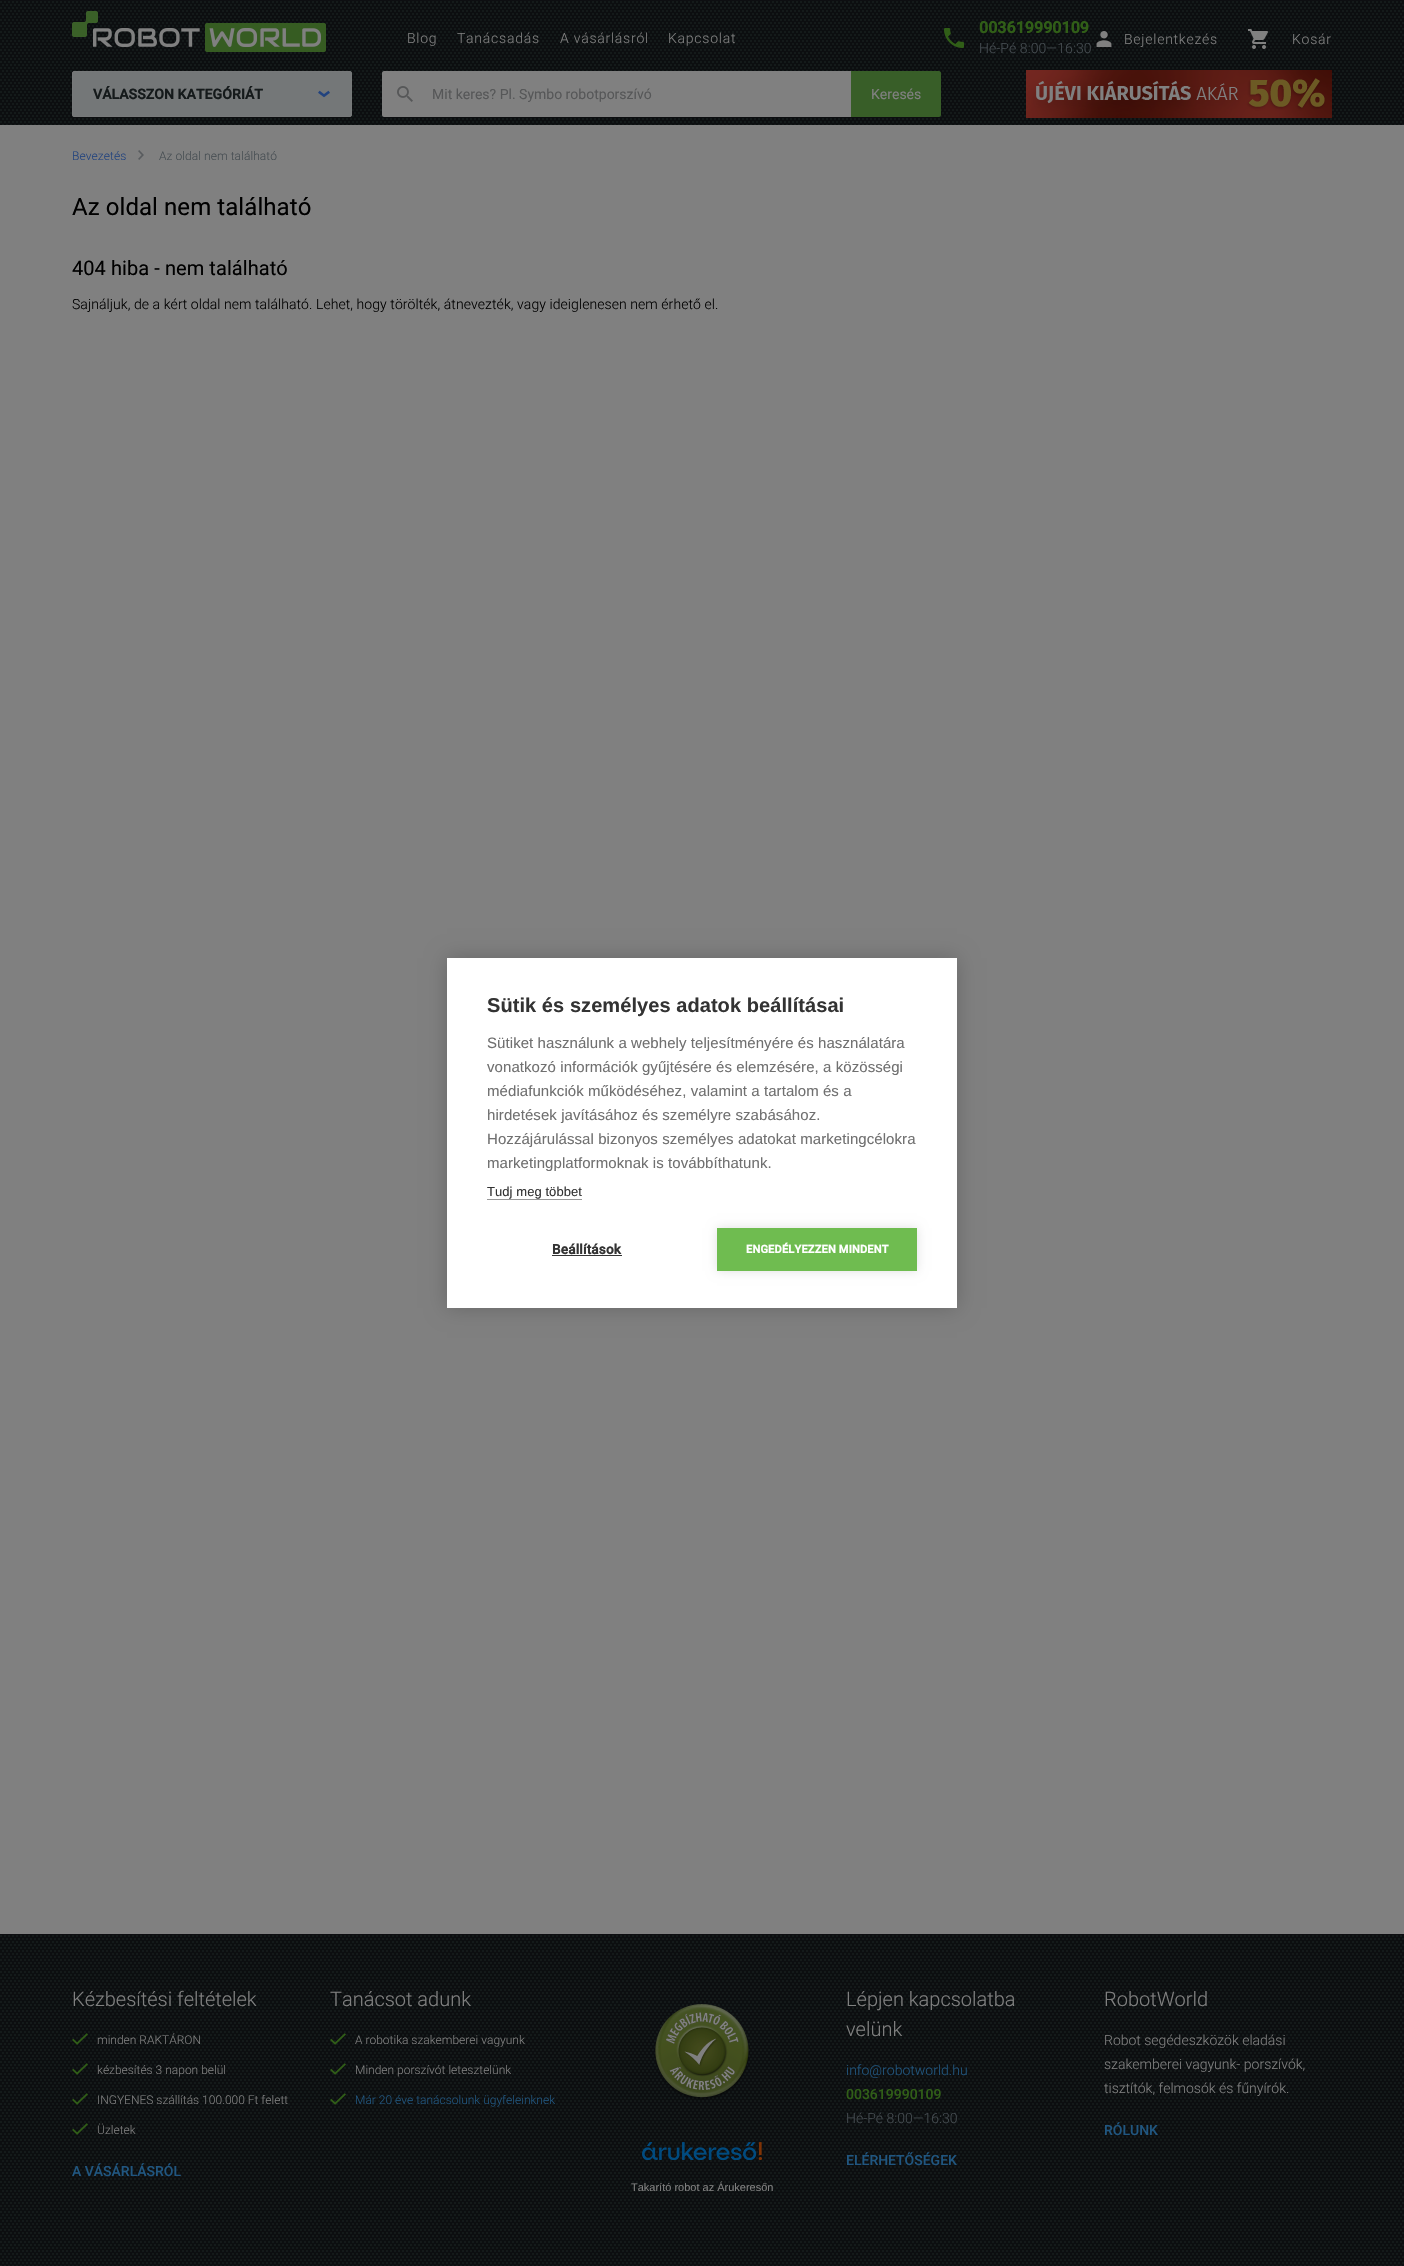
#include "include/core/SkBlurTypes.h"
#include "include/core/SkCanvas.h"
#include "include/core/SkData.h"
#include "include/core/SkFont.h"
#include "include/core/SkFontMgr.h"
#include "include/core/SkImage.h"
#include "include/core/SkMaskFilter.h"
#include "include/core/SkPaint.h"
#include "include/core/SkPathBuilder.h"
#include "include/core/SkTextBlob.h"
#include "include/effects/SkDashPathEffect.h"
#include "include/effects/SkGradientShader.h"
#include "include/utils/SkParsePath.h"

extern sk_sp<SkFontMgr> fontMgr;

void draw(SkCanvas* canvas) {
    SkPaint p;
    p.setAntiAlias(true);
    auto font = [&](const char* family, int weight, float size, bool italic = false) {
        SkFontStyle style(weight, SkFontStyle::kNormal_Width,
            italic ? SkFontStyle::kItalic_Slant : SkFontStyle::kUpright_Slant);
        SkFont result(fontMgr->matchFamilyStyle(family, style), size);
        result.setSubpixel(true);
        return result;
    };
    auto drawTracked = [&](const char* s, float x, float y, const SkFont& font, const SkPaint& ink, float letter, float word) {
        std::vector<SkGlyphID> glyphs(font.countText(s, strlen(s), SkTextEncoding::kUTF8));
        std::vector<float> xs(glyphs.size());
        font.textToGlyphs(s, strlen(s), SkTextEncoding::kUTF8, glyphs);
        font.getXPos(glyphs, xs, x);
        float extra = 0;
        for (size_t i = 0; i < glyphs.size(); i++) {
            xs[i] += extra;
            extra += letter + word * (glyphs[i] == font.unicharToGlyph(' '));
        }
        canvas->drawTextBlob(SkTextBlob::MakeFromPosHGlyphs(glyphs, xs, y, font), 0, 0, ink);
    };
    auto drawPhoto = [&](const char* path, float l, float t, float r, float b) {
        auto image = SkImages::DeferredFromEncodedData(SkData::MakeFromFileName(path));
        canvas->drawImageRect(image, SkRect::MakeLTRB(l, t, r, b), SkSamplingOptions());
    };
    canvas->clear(0xFF808080);
    p.setColor(0xFF0D0E11);
    canvas->drawRect(SkRect::MakeLTRB(0, 0, 1404, 1), p);
    drawPhoto("media/1.png", 0, 1, 1404, 125);
    drawPhoto("media/2.png", 72, 11, 326, 52);
    drawPhoto("media/3.png", 944, 28, 964, 48);
    auto font1 = font("Roboto", 700, 16);
    p.setColor(0xFF305E17);
    drawTracked("003619990109", 979, 33, font1, p, 0.07f, 0);
    auto font2 = font("Roboto", 300, 14);
    p.setColor(0xFF464D52);
    drawTracked("Hé-Pé 8:00—16:30", 979, 53, font2, p, 0.07f, 0);
    drawPhoto("media/4.png", 1096, 31, 1112, 47);
    p.setColor(0xFF808080);
    drawTracked("Bejelentkezés", 1124, 44, font2, p, 0.75f, 0);
    drawPhoto("media/5.png", 1248, 29, 1268, 49);
    drawTracked("Kosár", 1292, 44, font2, p, 0.75f, 0);
    p.setColor(0xFF747778);
    canvas->drawRoundRect(SkRect::MakeLTRB(72.5f, 71.5f, 351.5f, 116.5f), 1.5f, 1.5f, p);
    p.setStyle(SkPaint::kStroke_Style);
    p.setStrokeWidth(1);
    p.setColor(0xFF77797A);
    canvas->drawRoundRect(SkRect::MakeLTRB(72.5f, 71.5f, 351.5f, 116.5f), 1.5f, 1.5f, p);
    auto font3 = font("Roboto", 700, 14);
    p.setStyle(SkPaint::kFill_Style);
    p.setColor(0xFF151A1B);
    drawTracked("VÁLASSZON KATEGÓRIÁT", 93, 99, font3, p, 0.1f, 0);
    drawPhoto("media/6.png", 318, 90, 330, 98);
    p.setColor(0xFF808080);
    canvas->drawPath(SkPathBuilder().moveTo(384, 71).lineTo(851, 71).lineTo(851, 117).lineTo(384, 117).cubicTo(383, 117, 382, 116, 382, 115).lineTo(382, 73).cubicTo(382, 72, 383, 71, 384, 71).close().detach(), p);
    drawPhoto("media/7.png", 397, 86, 413, 102);
    auto font4 = font("Roboto", 400, 14);
    p.setColor(0xFF565758);
    canvas->drawString("Mit keres? Pl. Symbo robotporszívó", 432, 99, font4, p);
    p.setColor(0xFF385E28);
    canvas->drawPath(SkPathBuilder().moveTo(851, 71).lineTo(939, 71).cubicTo(940, 71, 941, 72, 941, 73).lineTo(941, 115).cubicTo(941, 116, 940, 117, 939, 117).lineTo(851, 117).close().detach(), p);
    p.setColor(0xFF808080);
    canvas->drawString("Keresés", 871, 99, font4, p);
    drawPhoto("media/8.png", 1026, 70, 1332, 118);
    {
        const struct { const char* s; float x, y; } items[] = {
            {"Blog", 407, 43},
            {"Tanácsadás", 457, 43},
            {"A vásárlásról", 560, 43},
            {"Kapcsolat", 668, 43},
        };
        for (auto [s, x, y] : items) {
            drawTracked(s, x, y, font2, p, 0.75f, 0);
        }
    }
    auto font5 = font("Roboto", 300, 12);
    p.setColor(0xFF22437E);
    drawTracked("Bevezetés", 72, 160, font5, p, 0.07f, 0);
    drawPhoto("media/9.png", 138, 150, 144, 160);
    p.setColor(0xFF464D52);
    drawTracked("Az oldal nem található", 159, 160, font5, p, 0.07f, 0);
    auto font6 = font("Roboto", 400, 24);
    p.setColor(0xFF000000);
    drawTracked("Az oldal nem található", 72, 215, font6, p, 0.07f, 0);
    auto font7 = font("Roboto", 400, 20);
    drawTracked("404 hiba - nem található", 72, 275, font7, p, 0.07f, 0);
    drawTracked("Sajnáljuk, de a kért oldal nem található. Lehet, hogy törölték, átnevezték, vagy ideiglenesen nem érhető el.", 72, 309, font2, p, 0.07f, 0);
    p.setColor(0x33000000);
    p.setMaskFilter(SkMaskFilter::MakeBlur(kNormal_SkBlurStyle, 10));
    canvas->drawRect(SkRect::MakeLTRB(447, 958, 957, 1308), p);
    p.setMaskFilter(nullptr);
    p.setColor(0xFFFFFFFF);
    canvas->drawRect(SkRect::MakeLTRB(447, 958, 957, 1308), p);
    auto font8 = font("Liberation Sans", 700, 20);
    p.setColor(0xFF333333);
    drawTracked("Sütik és személyes adatok beállításai", 487, 1012, font8, p, 0.07f, 0);
    auto font9 = font("Liberation Sans", 400, 15);
    p.setColor(0xFF707070);
    {
        const struct { const char* s; float x, y; } items[] = {
            {"Sütiket használunk a webhely teljesítményére és használatára", 487, 1048},
            {"vonatkozó információk gyűjtésére és elemzésére, a közösségi", 487, 1072},
            {"médiafunkciók működéséhez, valamint a tartalom és a", 487, 1096},
            {"hirdetések javításához és személyre szabásához.", 487, 1120},
            {"Hozzájárulással bizonyos személyes adatokat marketingcélokra", 487, 1144},
            {"marketingplatformoknak is továbbíthatunk.", 487, 1168},
        };
        for (auto [s, x, y] : items) {
            drawTracked(s, x, y, font9, p, 0.07f, 0);
        }
    }
    auto font10 = font("Liberation Sans", 400, 13);
    p.setColor(0xFF333333);
    drawTracked("Tudj meg többet", 487, 1196, font10, p, 0.07f, 0);
    p.setColor(0xFF999999);
    canvas->drawRect(SkRect::MakeLTRB(487, 1199, 582, 1200), p);
    auto font11 = font("Roboto", 700, 13.5f);
    p.setColor(0xFF333333);
    drawTracked("Beállítások", 552, 1254, font11, p, 0.2f, 0);
    canvas->drawRect(SkRect::MakeLTRB(552, 1255, 622, 1256), p);
    p.setColor(0x1F000000);
    p.setMaskFilter(SkMaskFilter::MakeBlur(kNormal_SkBlurStyle, 5));
    canvas->drawRect(SkRect::MakeLTRB(717, 1228, 917, 1271), p);
    p.setMaskFilter(nullptr);
    p.setColor(0xFF6FBC50);
    canvas->drawRect(SkRect::MakeLTRB(717, 1228, 917, 1271), p);
    auto font12 = font("Roboto", 700, 11);
    p.setColor(0xFFFFFFFF);
    drawTracked("ENGEDÉLYEZZEN MINDENT", 746, 1253, font12, p, 0.2f, 0);
    p.setColor(0xFF0D0E11);
    canvas->drawRect(SkRect::MakeLTRB(0, 1934, 1404, 1935), p);
    drawPhoto("media/10.png", 0, 1935, 1404, 2266);
    auto font13 = font("Roboto", 300, 20);
    p.setColor(0xFF808080);
    canvas->drawString("Kézbesítési feltételek", 72, 2006, font13, p);
    drawPhoto("media/11.png", 72, 2033, 88, 2045);
    canvas->drawString("minden RAKTÁRON", 97, 2044, font5, p);
    drawPhoto("media/11.png", 72, 2063, 88, 2075);
    canvas->drawString("kézbesítés 3 napon belül", 97, 2074, font5, p);
    drawPhoto("media/11.png", 72, 2093, 88, 2105);
    canvas->drawString("INGYENES szállítás 100.000 Ft felett", 97, 2104, font5, p);
    drawPhoto("media/11.png", 72, 2123, 88, 2135);
    canvas->drawString("Üzletek", 97, 2134, font5, p);
    auto font14 = font("Roboto", 500, 14);
    p.setColor(0xFF205680);
    canvas->drawString("A VÁSÁRLÁSRÓL", 72, 2176, font14, p);
    p.setColor(0xFF808080);
    canvas->drawString("Tanácsot adunk", 330, 2006, font13, p);
    drawPhoto("media/12.png", 330, 2033, 346, 2045);
    canvas->drawString("A robotika szakemberei vagyunk", 355, 2044, font5, p);
    drawPhoto("media/12.png", 330, 2063, 346, 2075);
    canvas->drawString("Minden porszívót letesztelünk", 355, 2074, font5, p);
    drawPhoto("media/12.png", 330, 2093, 346, 2105);
    p.setColor(0xFF205680);
    canvas->drawString("Már 20 éve tanácsolunk ügyfeleinknek", 355, 2104, font5, p);
    p.setColor(0xFF808080);
    canvas->drawString("Lépjen kapcsolatba", 846, 2006, font13, p);
    canvas->drawString("velünk", 846, 2036, font13, p);
    p.setColor(0xFF205680);
    canvas->drawString("info@robotworld.hu", 846, 2075, font2, p);
    p.setColor(0xFF305E17);
    canvas->drawString("003619990109", 846, 2099, font14, p);
    p.setColor(0xFF464D52);
    canvas->drawString("Hé-Pé 8:00—16:30", 846, 2123, font2, p);
    p.setColor(0xFF205680);
    canvas->drawString("ELÉRHETŐSÉGEK", 846, 2165, font14, p);
    p.setColor(0xFF808080);
    canvas->drawString("RobotWorld", 1104, 2006, font13, p);
    {
        const struct { const char* s; float x, y; } items[] = {
            {"Robot segédeszközök eladási", 1104, 2045},
            {"szakemberei vagyunk- porszívók,", 1104, 2069},
            {"tisztítók, felmosók és fűnyírók.", 1104, 2093},
        };
        for (auto [s, x, y] : items) {
            canvas->drawString(s, x, y, font2, p);
        }
    }
    p.setColor(0xFF205680);
    canvas->drawString("RÓLUNK", 1104, 2135, font14, p);
    drawPhoto("media/13.png", 654, 2004, 750, 2100);
    drawPhoto("media/14.png", 642, 2142, 762, 2160);
    auto font15 = font("Liberation Sans", 400, 11);
    p.setColor(0xFF808080);
    canvas->drawString("Takarító robot az Árukeresőn", 631, 2191, font15, p);
}
